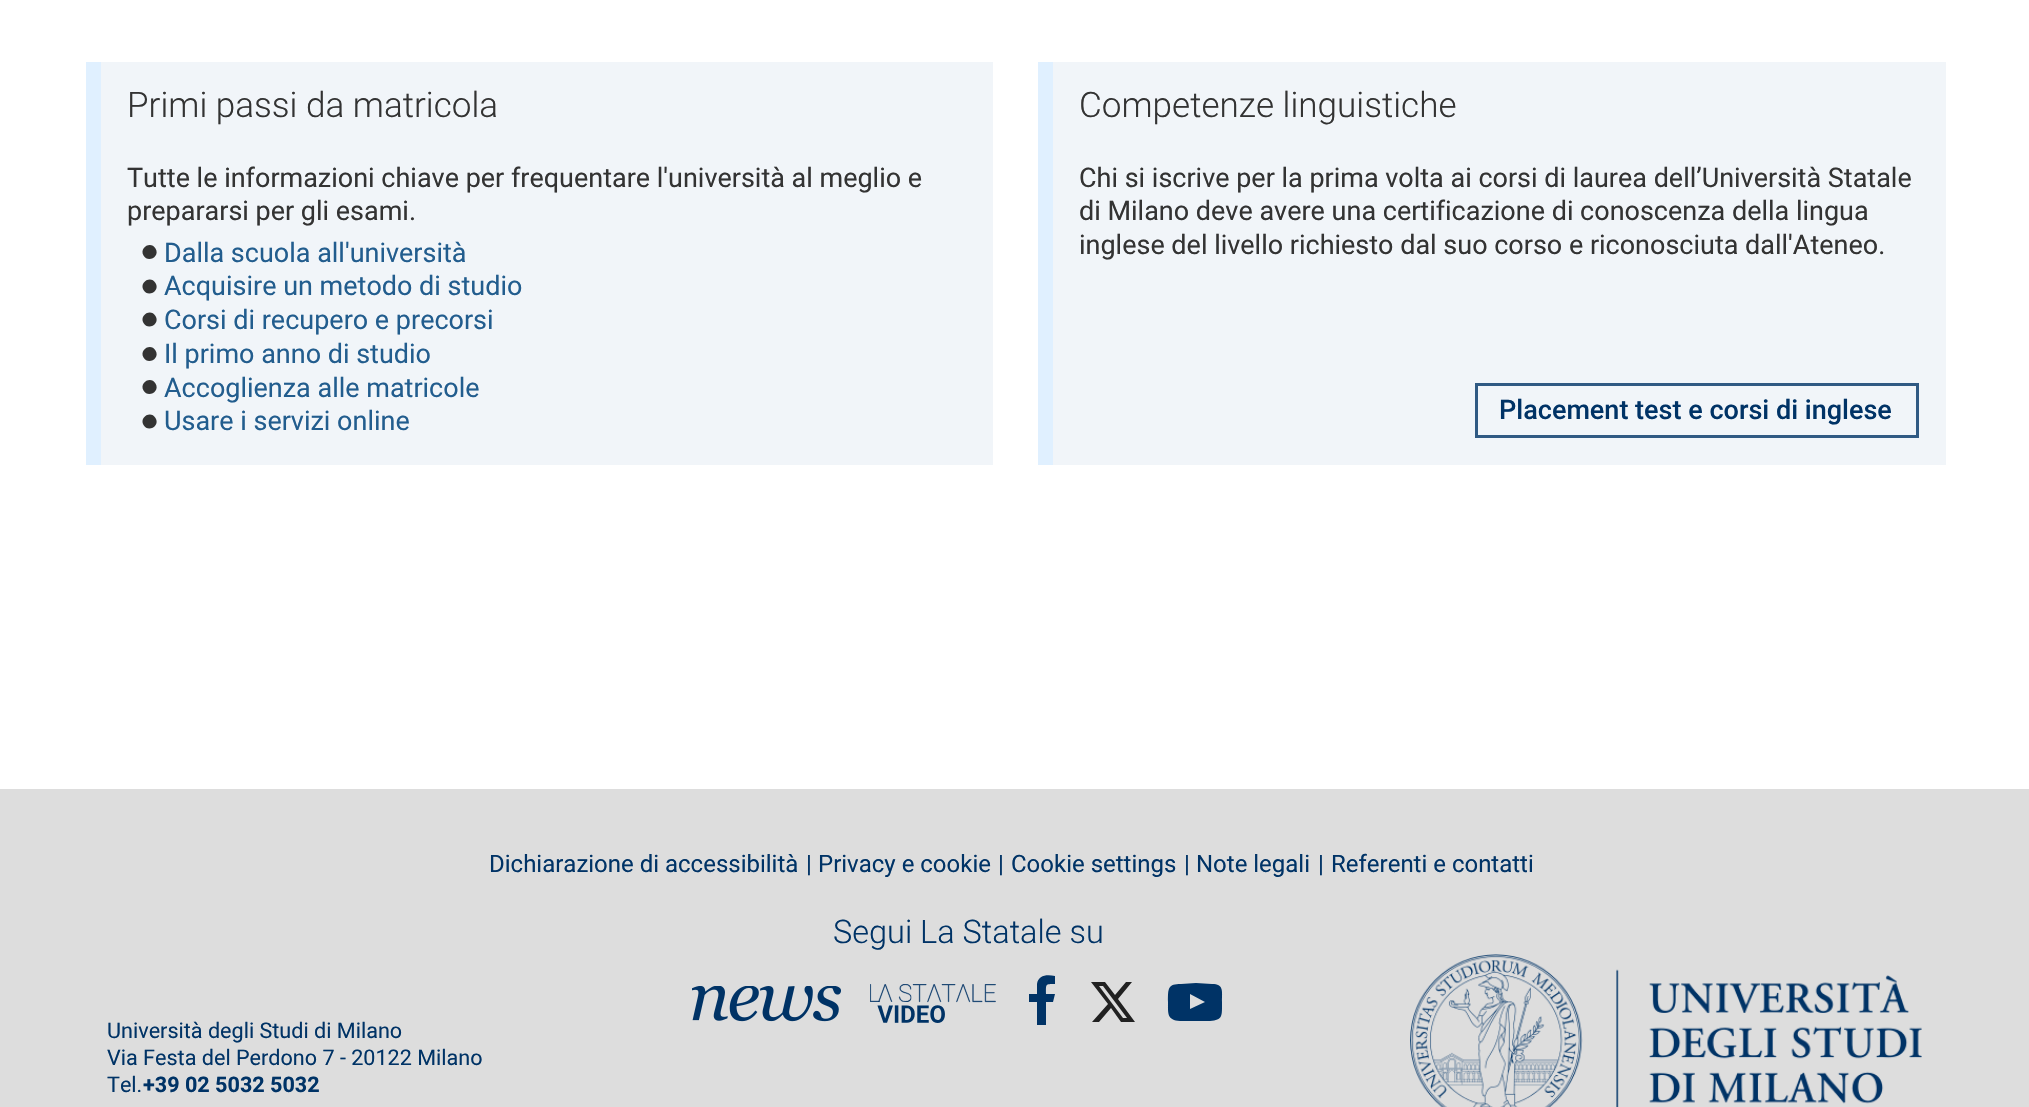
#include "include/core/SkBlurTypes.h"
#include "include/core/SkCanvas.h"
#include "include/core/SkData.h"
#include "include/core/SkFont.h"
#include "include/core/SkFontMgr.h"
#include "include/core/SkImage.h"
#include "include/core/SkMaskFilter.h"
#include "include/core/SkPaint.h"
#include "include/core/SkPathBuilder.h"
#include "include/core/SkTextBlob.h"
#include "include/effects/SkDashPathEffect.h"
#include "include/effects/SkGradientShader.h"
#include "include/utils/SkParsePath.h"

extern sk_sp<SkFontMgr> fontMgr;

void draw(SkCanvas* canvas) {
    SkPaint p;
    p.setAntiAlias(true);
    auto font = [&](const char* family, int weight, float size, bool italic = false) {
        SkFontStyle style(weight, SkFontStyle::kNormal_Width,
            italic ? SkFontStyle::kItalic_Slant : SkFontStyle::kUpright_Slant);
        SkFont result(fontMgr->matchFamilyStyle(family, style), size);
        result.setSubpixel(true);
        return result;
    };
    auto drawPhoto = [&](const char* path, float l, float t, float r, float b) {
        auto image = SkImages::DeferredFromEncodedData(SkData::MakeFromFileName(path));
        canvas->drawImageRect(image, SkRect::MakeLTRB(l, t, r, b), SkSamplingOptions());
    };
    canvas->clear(0xFFFFFFFF);
    p.setColor(0xFFF1F5F9);
    canvas->drawRect(SkRect::MakeLTRB(101, 62, 993, 465), p);
    p.setColor(0xFFE0F0FF);
    canvas->drawRect(SkRect::MakeLTRB(86, 62, 101, 465), p);
    auto font1 = font("Roboto", 300, 35.1f);
    p.setColor(0xFF333333);
    canvas->drawString("Primi passi da matricola", 127, 117, font1, p);
    auto font2 = font("Roboto", 400, 27);
    canvas->drawString("Tutte le informazioni chiave per frequentare l'università al meglio e", 127, 187, font2, p);
    canvas->drawString("prepararsi per gli esami.", 127, 220, font2, p);
    canvas->drawPath(SkPathBuilder().moveTo(155.5f, 248.5f).cubicTo(160.5f, 256.5f, 148, 263.5f, 143.5f, 255.5f).cubicTo(139, 247.5f, 151, 240.5f, 155.5f, 248.5f).close().detach(), p);
    p.setColor(0xFF225D8E);
    canvas->drawString("Dalla scuola all'università", 164, 262, font2, p);
    p.setColor(0xFF333333);
    canvas->drawPath(SkPathBuilder().moveTo(155.5f, 283).cubicTo(160.5f, 291, 148, 298, 143.5f, 290).cubicTo(139, 282, 151, 275, 155.5f, 283).close().detach(), p);
    p.setColor(0xFF225D8E);
    canvas->drawString("Acquisire un metodo di studio", 164, 295, font2, p);
    p.setColor(0xFF333333);
    canvas->drawPath(SkPathBuilder().moveTo(155.5f, 316).cubicTo(160.5f, 324, 148, 331, 143.5f, 323).cubicTo(139, 315, 151, 308, 155.5f, 316).close().detach(), p);
    p.setColor(0xFF225D8E);
    canvas->drawString("Corsi di recupero e precorsi", 164, 329, font2, p);
    p.setColor(0xFF333333);
    canvas->drawPath(SkPathBuilder().moveTo(155.5f, 350.5f).cubicTo(160.5f, 358.5f, 148, 365.5f, 143.5f, 357.5f).cubicTo(139, 349.5f, 151, 342.5f, 155.5f, 350.5f).close().detach(), p);
    p.setColor(0xFF225D8E);
    canvas->drawString("Il primo anno di studio", 164, 363, font2, p);
    p.setColor(0xFF333333);
    canvas->drawPath(SkPathBuilder().moveTo(155.5f, 383.5f).cubicTo(160.5f, 391.5f, 148, 398.5f, 143.5f, 390.5f).cubicTo(139, 382.5f, 151, 375.5f, 155.5f, 383.5f).close().detach(), p);
    p.setColor(0xFF225D8E);
    canvas->drawString("Accoglienza alle matricole", 164, 397, font2, p);
    p.setColor(0xFF333333);
    canvas->drawPath(SkPathBuilder().moveTo(155.5f, 418).cubicTo(160.5f, 426, 148, 433, 143.5f, 425).cubicTo(139, 417, 151, 410, 155.5f, 418).close().detach(), p);
    p.setColor(0xFF225D8E);
    canvas->drawString("Usare i servizi online", 164, 430, font2, p);
    p.setColor(0xFFF1F5F9);
    canvas->drawRect(SkRect::MakeLTRB(1053, 62, 1946, 465), p);
    p.setColor(0xFFE0F0FF);
    canvas->drawRect(SkRect::MakeLTRB(1038, 62, 1053, 465), p);
    p.setColor(0xFF333333);
    canvas->drawString("Competenze linguistiche", 1079, 117, font1, p);
    {
        const struct { const char* s; float x, y; } items[] = {
            {"Chi si iscrive per la prima volta ai corsi di laurea dell’Università Statale", 1079, 187},
            {"di Milano deve avere una certificazione di conoscenza della lingua", 1079, 220},
            {"inglese del livello richiesto dal suo corso e riconosciuta dall'Ateneo.", 1079, 254},
        };
        for (auto [s, x, y] : items) {
            canvas->drawString(s, x, y, font2, p);
        }
    }
    p.setStyle(SkPaint::kStroke_Style);
    p.setStrokeWidth(3);
    p.setColor(0xFF305A83);
    canvas->drawRect(SkRect::MakeLTRB(1476.5f, 384.5f, 1917.5f, 436.5f), p);
    auto font3 = font("Roboto", 500, 27);
    p.setStyle(SkPaint::kFill_Style);
    p.setColor(0xFF003366);
    canvas->drawString("Placement test e corsi di inglese", 1499, 419, font3, p);
    p.setColor(0xFFDDDDDD);
    canvas->drawRect(SkRect::MakeLTRB(0, 789, 2029, 1107), p);
    auto font4 = font("Roboto", 400, 24);
    p.setColor(0xFF003366);
    {
        const struct { const char* s; float x, y; } items[] = {
            {"Dichiarazione di accessibilità", 489, 872},
            {"|", 806, 872},
            {"Privacy e cookie", 818, 872},
            {"|", 998, 872},
            {"Cookie settings", 1011, 872},
            {"|", 1184, 872},
            {"Note legali", 1196, 872},
            {"|", 1318, 872},
            {"Referenti e contatti", 1331, 872},
        };
        for (auto [s, x, y] : items) {
            canvas->drawString(s, x, y, font4, p);
        }
    }
    auto font5 = font("Roboto", 300, 32.5f);
    canvas->drawString("Segui La Statale su", 833, 943, font5, p);
    drawPhoto("media/1.png", 692, 986, 841, 1022);
    drawPhoto("media/2.png", 870, 984, 996, 1023);
    canvas->drawPath(SkPathBuilder().moveTo(1055, 976).lineTo(1055, 984).cubicTo(1045, 984, 1046, 984, 1046, 994).lineTo(1055, 994).lineTo(1053, 1002).lineTo(1046, 1002).lineTo(1046, 1025).lineTo(1037, 1025).lineTo(1037, 1002).lineTo(1029, 1002).lineTo(1029, 994).lineTo(1037, 994).lineTo(1037, 984).cubicTo(1038, 975, 1047, 974, 1055, 976).close().detach(), p);
    p.setColor(0xFF212121);
    canvas->drawPath(SkPathBuilder().moveTo(1126, 982).lineTo(1132, 982).lineTo(1118, 999).lineTo(1135, 1022).lineTo(1121, 1022).lineTo(1111, 1008).lineTo(1099, 1022).lineTo(1092, 1022).lineTo(1108, 1004).lineTo(1091, 982).lineTo(1105, 982).lineTo(1115, 995).close().moveTo(1123, 1018).lineTo(1127, 1018).lineTo(1103, 986).lineTo(1099, 986).close().detach(), p);
    p.setColor(0xFF003366);
    canvas->drawPath(SkPathBuilder().moveTo(1190, 1009).lineTo(1205, 1002).lineTo(1190, 994).close().moveTo(1196, 983).lineTo(1212, 984).cubicTo(1224, 984, 1222, 991, 1222, 1002).cubicTo(1222, 1016, 1223, 1020, 1210, 1021).lineTo(1180, 1021).cubicTo(1167, 1020, 1168, 1014, 1168, 1002).cubicTo(1168, 988, 1168, 984, 1181, 984).close().detach(), p);
    auto font6 = font("Roboto", 400, 21.6f);
    {
        const struct { const char* s; float x, y; } items[] = {
            {"Università degli Studi di Milano", 107, 1038},
            {"Via Festa del Perdono 7 - 20122 Milano", 107, 1065},
            {"Tel.", 107, 1092},
        };
        for (auto [s, x, y] : items) {
            canvas->drawString(s, x, y, font6, p);
        }
    }
    auto font7 = font("Roboto", 700, 21.6f);
    canvas->drawString("+39 02 5032 5032", 143, 1092, font7, p);
    drawPhoto("media/3.png", 1410, 954, 1922, 1107);
}
